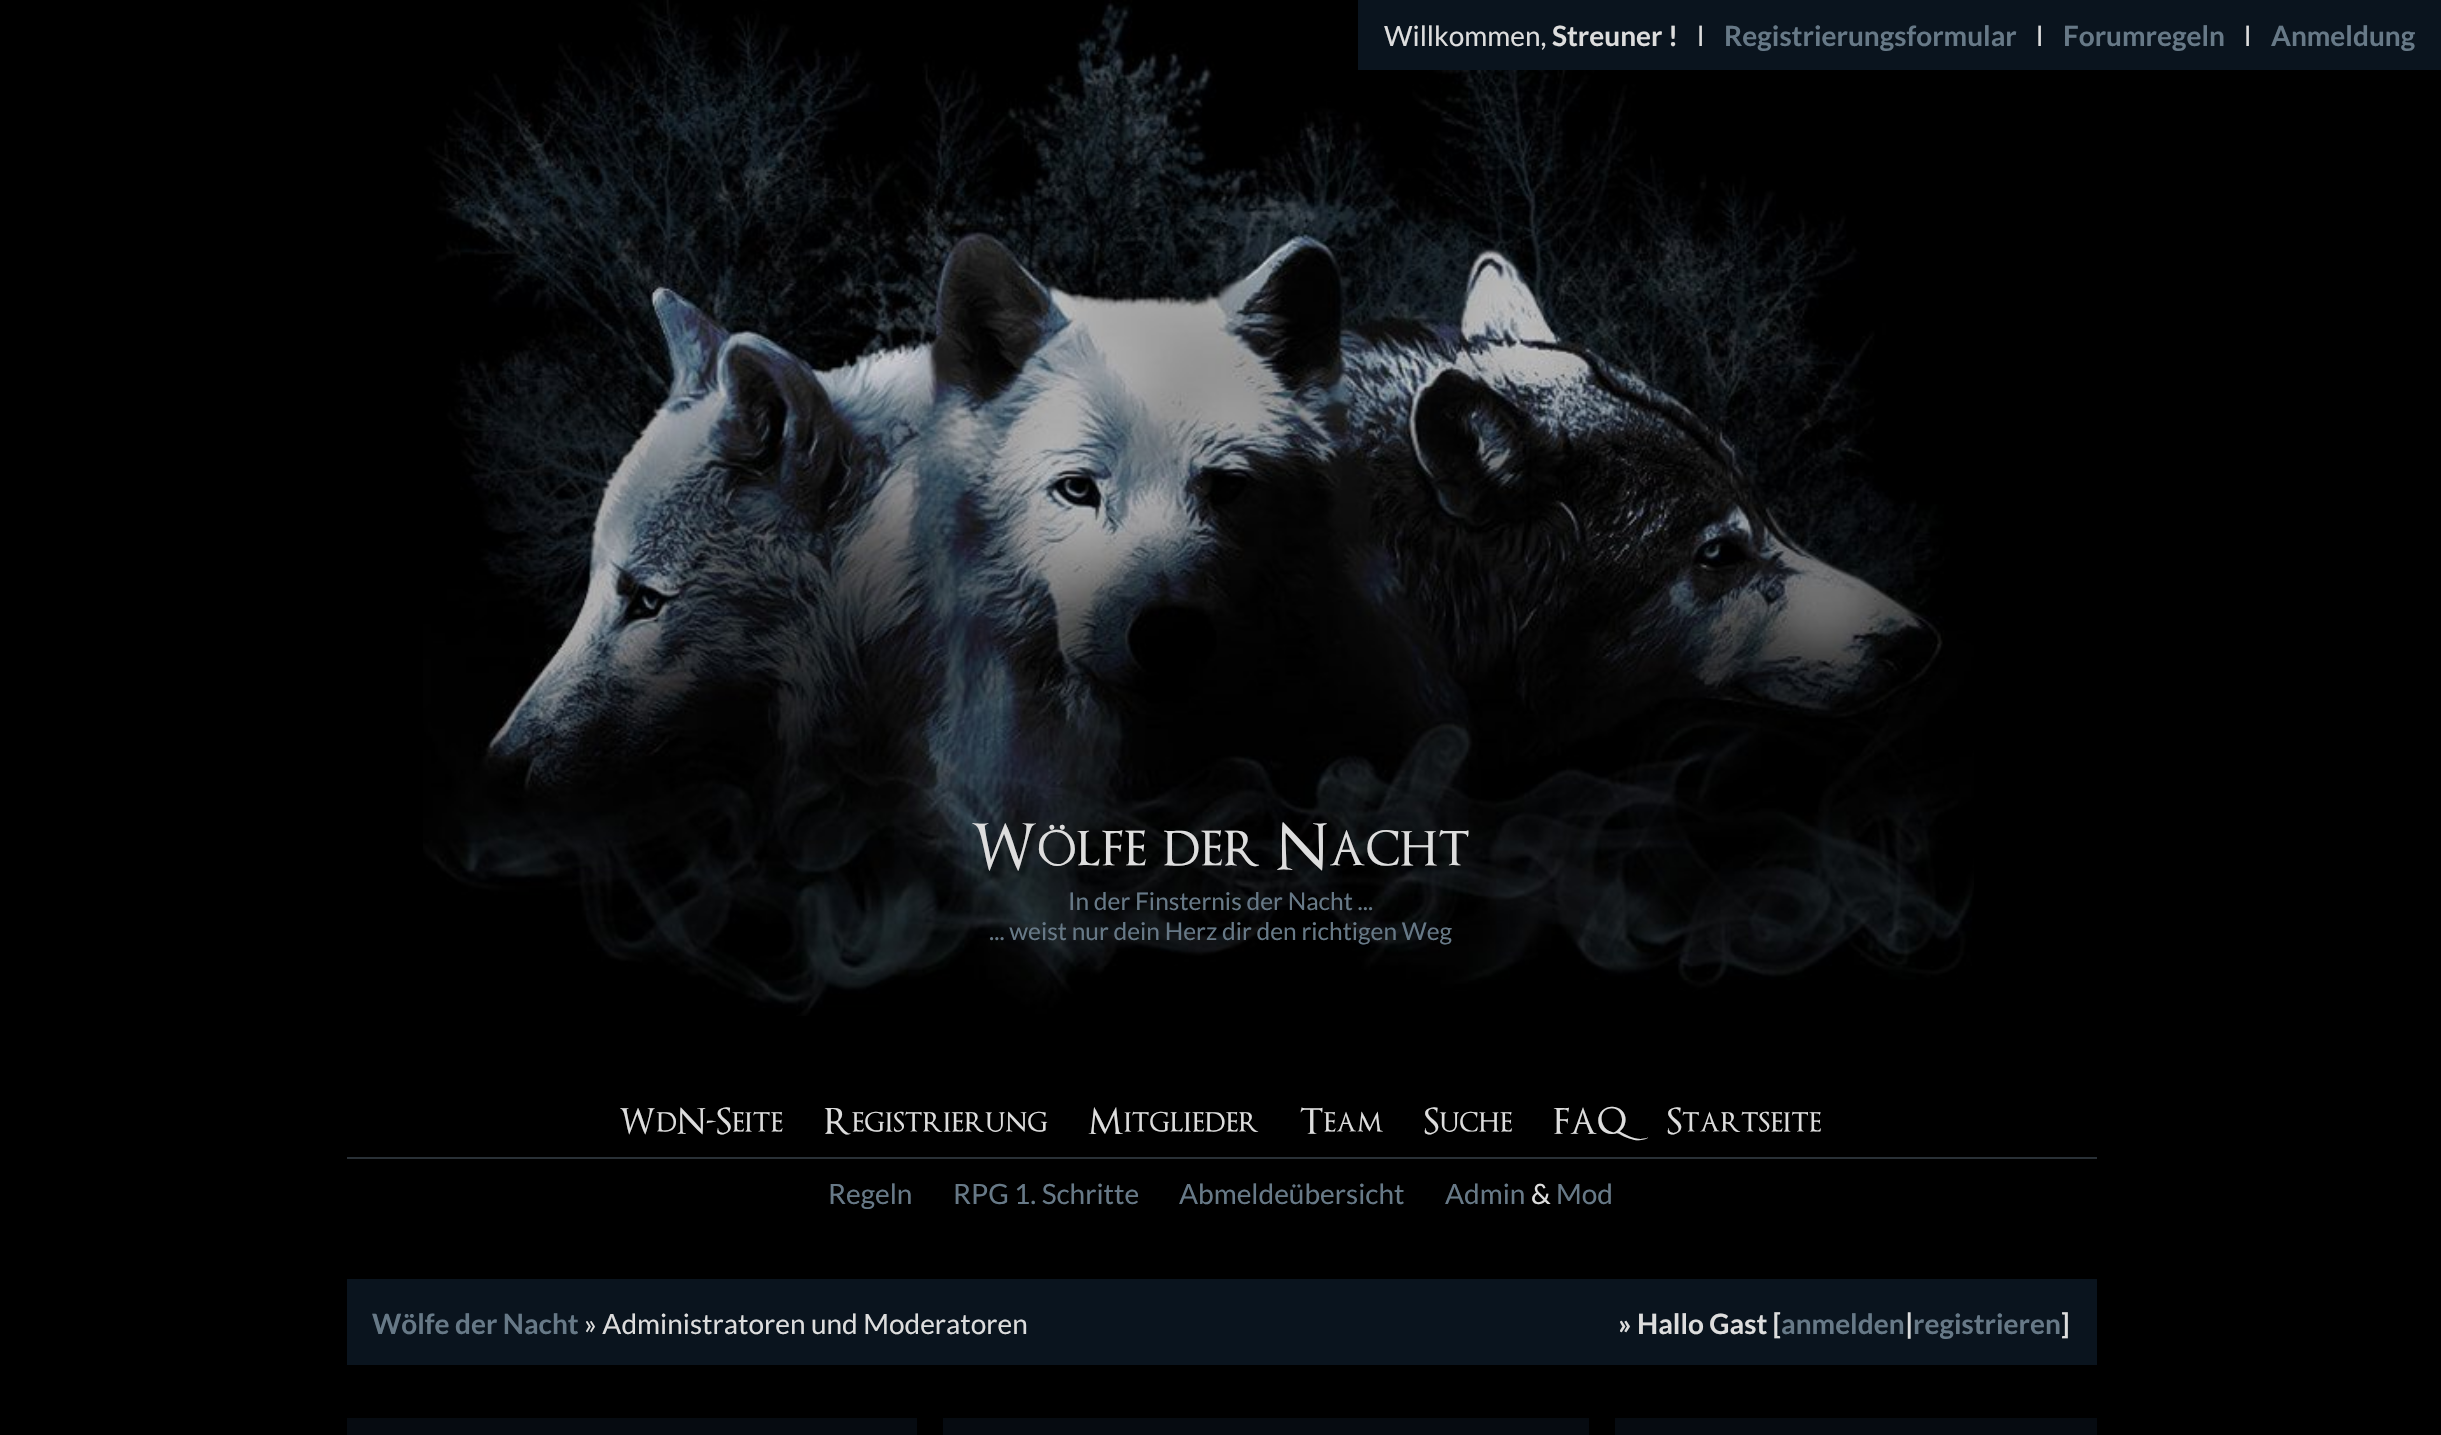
#include "include/core/SkBlurTypes.h"
#include "include/core/SkCanvas.h"
#include "include/core/SkData.h"
#include "include/core/SkFont.h"
#include "include/core/SkFontMgr.h"
#include "include/core/SkImage.h"
#include "include/core/SkMaskFilter.h"
#include "include/core/SkPaint.h"
#include "include/core/SkPathBuilder.h"
#include "include/core/SkTextBlob.h"
#include "include/effects/SkDashPathEffect.h"
#include "include/effects/SkGradientShader.h"
#include "include/utils/SkParsePath.h"

extern sk_sp<SkFontMgr> fontMgr;

void draw(SkCanvas* canvas) {
    SkPaint p;
    p.setAntiAlias(true);
    auto font = [&](const char* family, int weight, float size, bool italic = false) {
        SkFontStyle style(weight, SkFontStyle::kNormal_Width,
            italic ? SkFontStyle::kItalic_Slant : SkFontStyle::kUpright_Slant);
        SkFont result(fontMgr->matchFamilyStyle(family, style), size);
        result.setSubpixel(true);
        return result;
    };
    auto drawPhoto = [&](const char* path, float l, float t, float r, float b) {
        auto image = SkImages::DeferredFromEncodedData(SkData::MakeFromFileName(path));
        canvas->drawImageRect(image, SkRect::MakeLTRB(l, t, r, b), SkSamplingOptions());
    };
    canvas->clear(0xFF000000);
    drawPhoto("media/1.png", 423, 0, 1974, 1016);
    p.setColor(0xFF0A141E);
    canvas->drawRect(SkRect::MakeLTRB(1358, 0, 2441, 70), p);
    auto font1 = font("Lato", 400, 28);
    p.setColor(0xFFDDDDDD);
    canvas->drawString("Willkommen,", 1384, 46, font1, p);
    auto font2 = font("Lato", 700, 28);
    canvas->drawString("Streuner !", 1552, 46, font2, p);
    auto font3 = font("Liberation Sans", 400, 28);
    canvas->drawString("ǀ", 1697, 46, font3, p);
    p.setColor(0xFF677987);
    canvas->drawString("Registrierungsformular", 1724, 46, font2, p);
    p.setColor(0xFFDDDDDD);
    canvas->drawString("ǀ", 2036, 46, font3, p);
    p.setColor(0xFF677987);
    canvas->drawString("Forumregeln", 2063, 46, font2, p);
    p.setColor(0xFFDDDDDD);
    canvas->drawString("ǀ", 2244, 46, font3, p);
    p.setColor(0xFF677987);
    canvas->drawString("Anmeldung", 2271, 46, font2, p);
    auto font4 = font("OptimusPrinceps", 500, 63);
    p.setColor(0xFFDDDDDD);
    canvas->drawString("Wölfe der Nacht", 971, 870, font4, p);
    auto font5 = font("Lato", 400, 24.5f);
    p.setColor(0xFF677987);
    canvas->drawString("In der Finsternis der Nacht ...", 1068, 910, font5, p);
    canvas->drawString("... weist nur dein Herz dir den richtigen Weg", 989, 940, font5, p);
    auto font6 = font("OptimusPrinceps", 500, 35);
    p.setColor(0xFFDDDDDD);
    {
        const struct { const char* s; float x, y; } items[] = {
            {"WdN-Seite", 619, 1134},
            {"Registrierung", 824, 1134},
            {"Mitglieder", 1088, 1134},
            {"Team", 1300, 1134},
            {"Suche", 1424, 1134},
            {"FAQ", 1553, 1134},
            {"Startseite", 1667, 1134},
        };
        for (auto [s, x, y] : items) {
            canvas->drawString(s, x, y, font6, p);
        }
    }
    p.setColor(0xFF293036);
    canvas->drawRect(SkRect::MakeLTRB(347, 1157, 2097, 1159), p);
    p.setColor(0xFF677987);
    {
        const struct { const char* s; float x, y; } items[] = {
            {"Regeln", 828, 1204},
            {"RPG 1. Schritte", 953, 1204},
            {"Abmeldeübersicht", 1179, 1204},
            {"Admin", 1445, 1204},
        };
        for (auto [s, x, y] : items) {
            canvas->drawString(s, x, y, font1, p);
        }
    }
    p.setColor(0xFFDDDDDD);
    canvas->drawString("&", 1531, 1204, font1, p);
    p.setColor(0xFF677987);
    canvas->drawString("Mod", 1556, 1204, font1, p);
    p.setColor(0xFF0A141E);
    canvas->drawRect(SkRect::MakeLTRB(347, 1279, 2097, 1365), p);
    p.setColor(0xFF677987);
    canvas->drawString("Wölfe der Nacht", 372, 1334, font2, p);
    p.setColor(0xFFDDDDDD);
    canvas->drawString("» Administratoren und Moderatoren", 584, 1334, font1, p);
    canvas->drawString("» Hallo Gast [", 1618, 1334, font2, p);
    p.setColor(0xFF677987);
    canvas->drawString("anmelden", 1781, 1334, font2, p);
    p.setColor(0xFFDDDDDD);
    canvas->drawString("|", 1905, 1334, font2, p);
    p.setColor(0xFF677987);
    canvas->drawString("registrieren", 1913, 1334, font2, p);
    p.setColor(0xFFDDDDDD);
    canvas->drawString("]", 2061, 1334, font2, p);
    {
        const struct { float l, t, r, b; SkColor color; } items[] = {
            {347, 1418, 917, 1435, 0xFF060B11},
            {943, 1418, 1589, 1435, 0xFF060B11},
            {1615, 1418, 2097, 1435, 0xFF060B11},
        };
        for (auto [l, t, r, b, color] : items) {
            p.setColor(color);
            canvas->drawRect(SkRect::MakeLTRB(l, t, r, b), p);
        }
    }
}
